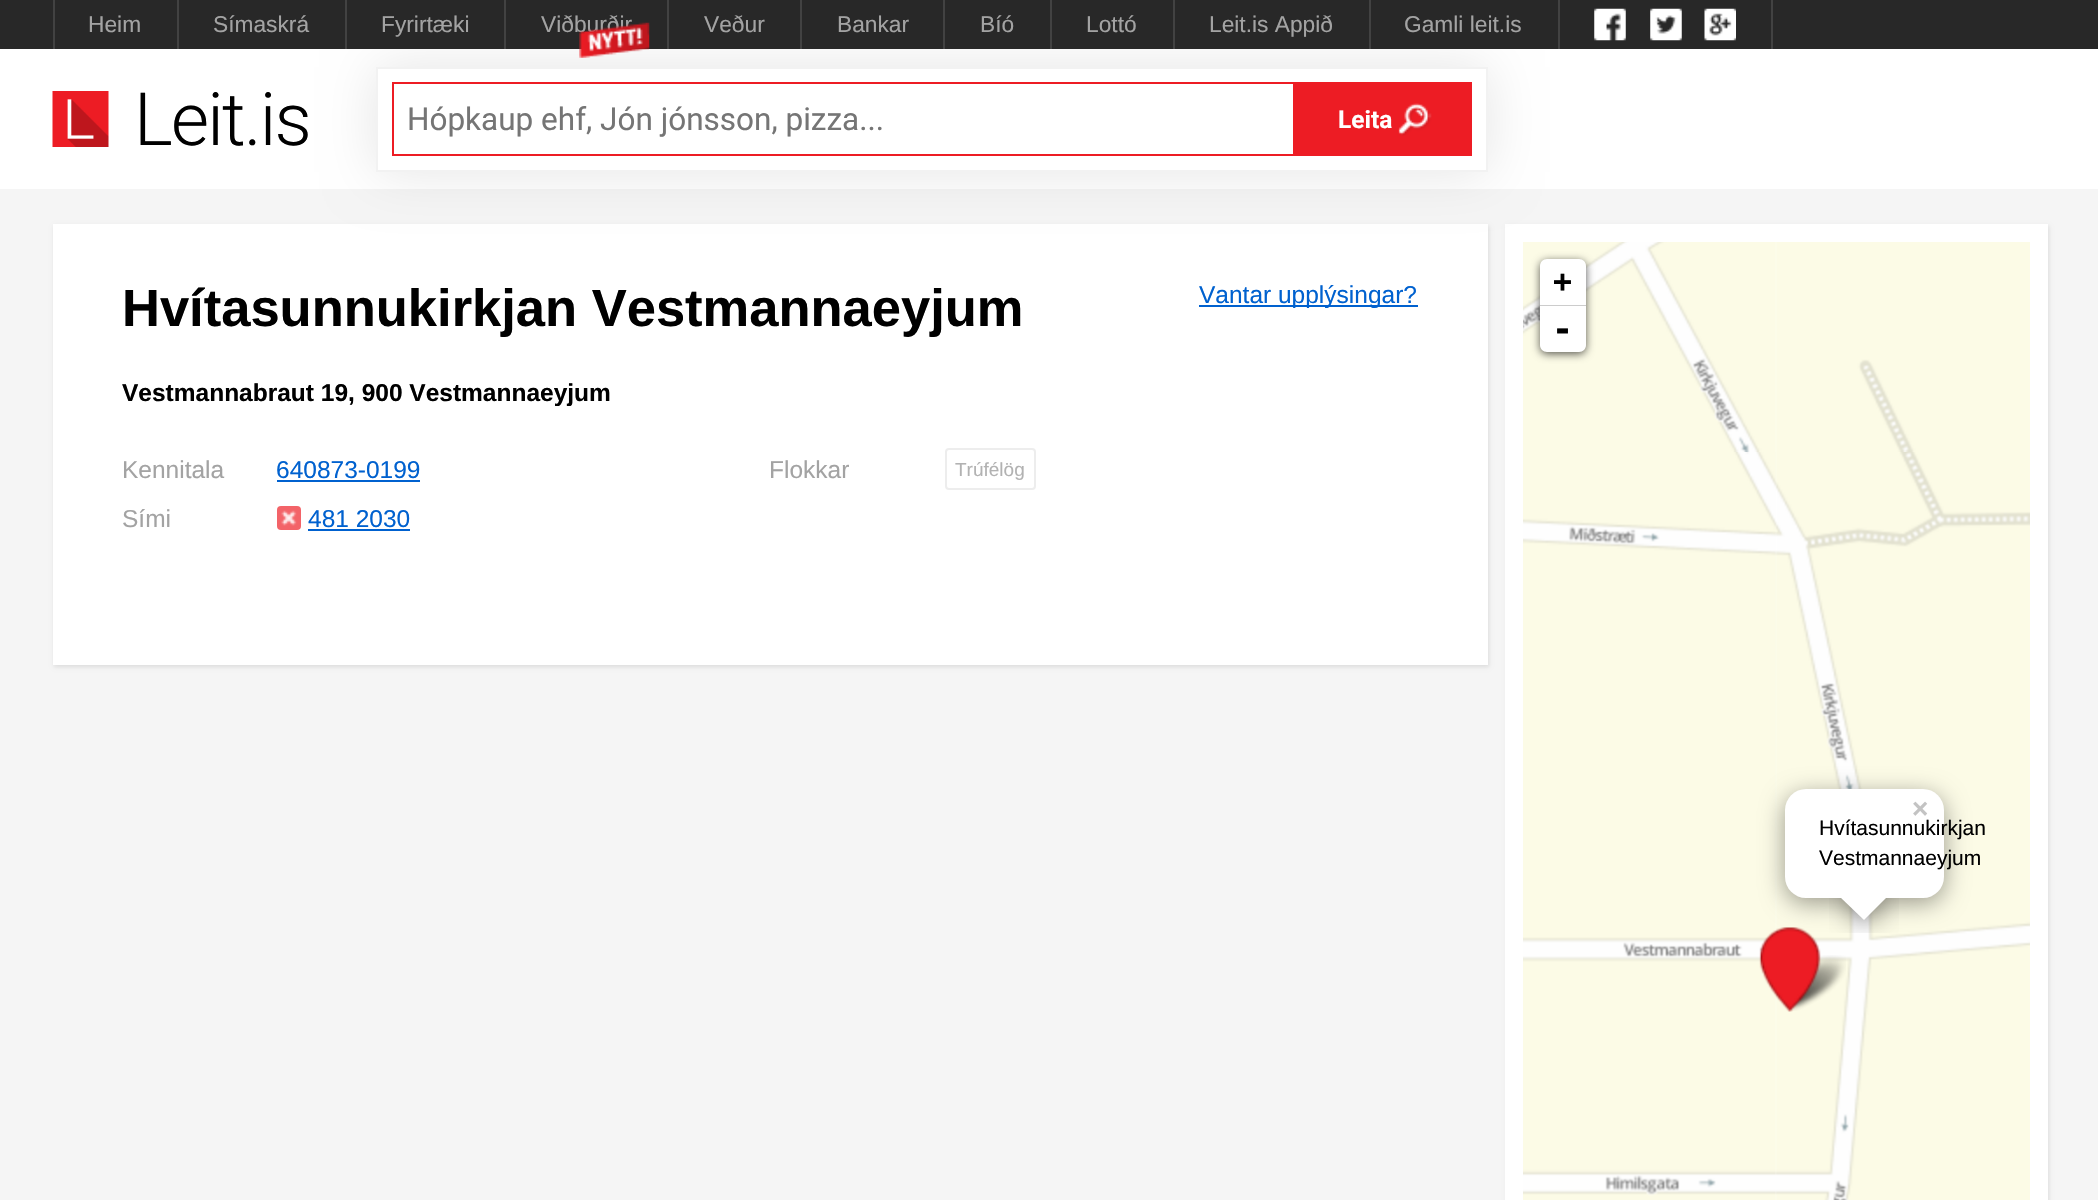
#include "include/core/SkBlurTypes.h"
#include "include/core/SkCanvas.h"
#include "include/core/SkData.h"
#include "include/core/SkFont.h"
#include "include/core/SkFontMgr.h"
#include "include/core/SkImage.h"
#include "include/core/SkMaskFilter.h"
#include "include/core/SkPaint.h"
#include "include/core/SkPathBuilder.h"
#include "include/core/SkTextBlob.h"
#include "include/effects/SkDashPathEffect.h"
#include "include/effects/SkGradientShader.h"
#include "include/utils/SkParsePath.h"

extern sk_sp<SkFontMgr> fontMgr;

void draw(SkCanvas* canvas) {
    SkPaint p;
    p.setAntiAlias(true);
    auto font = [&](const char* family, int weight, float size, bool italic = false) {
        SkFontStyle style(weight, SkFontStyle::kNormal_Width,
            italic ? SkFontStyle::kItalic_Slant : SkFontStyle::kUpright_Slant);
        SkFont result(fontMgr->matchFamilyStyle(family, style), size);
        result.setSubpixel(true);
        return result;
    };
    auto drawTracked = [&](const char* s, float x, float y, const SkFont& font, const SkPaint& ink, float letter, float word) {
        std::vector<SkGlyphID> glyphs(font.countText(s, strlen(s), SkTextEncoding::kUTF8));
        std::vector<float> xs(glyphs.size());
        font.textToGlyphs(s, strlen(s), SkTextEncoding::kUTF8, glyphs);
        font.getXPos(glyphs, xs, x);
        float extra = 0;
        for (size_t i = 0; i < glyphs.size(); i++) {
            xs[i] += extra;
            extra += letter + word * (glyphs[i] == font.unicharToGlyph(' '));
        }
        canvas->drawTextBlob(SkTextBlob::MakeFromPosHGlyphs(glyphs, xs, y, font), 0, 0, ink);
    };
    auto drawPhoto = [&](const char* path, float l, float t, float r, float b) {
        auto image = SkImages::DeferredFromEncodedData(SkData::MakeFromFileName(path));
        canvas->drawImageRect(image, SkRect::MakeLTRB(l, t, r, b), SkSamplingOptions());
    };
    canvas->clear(0xFFF5F5F5);
    p.setColor(0xFFFFFFFF);
    canvas->drawRect(SkRect::MakeLTRB(0, 49, 2098, 189), p);
    p.setColor(0x1A000000);
    p.setMaskFilter(SkMaskFilter::MakeBlur(kNormal_SkBlurStyle, 2));
    canvas->drawRect(SkRect::MakeLTRB(54, 226, 1489, 667), p);
    p.setMaskFilter(nullptr);
    p.setColor(0xFFFFFFFF);
    canvas->drawRect(SkRect::MakeLTRB(53, 224, 1488, 665), p);
    p.setColor(0x1A000000);
    p.setMaskFilter(SkMaskFilter::MakeBlur(kNormal_SkBlurStyle, 2));
    canvas->drawRect(SkRect::MakeLTRB(1507, 226, 2049, 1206), p);
    p.setMaskFilter(nullptr);
    p.setColor(0xFFFFFFFF);
    canvas->drawRect(SkRect::MakeLTRB(1505, 224, 2048, 1200), p);
    drawPhoto("media/8.png", 1523, 242, 1777, 452);
    p.setColor(0x1A000000);
    p.setMaskFilter(SkMaskFilter::MakeBlur(kNormal_SkBlurStyle, 26));
    canvas->drawRect(SkRect::MakeLTRB(376, 67, 1488, 172), p);
    p.setMaskFilter(nullptr);
    {
        const struct { float l, t, r, b; SkColor color; } items[] = {
            {0, 0, 2098, 49, 0xFF282828},
            {177, 0, 179, 49, 0xFF424242},
            {53, 0, 55, 49, 0xFF424242},
        };
        for (auto [l, t, r, b, color] : items) {
            p.setColor(color);
            canvas->drawRect(SkRect::MakeLTRB(l, t, r, b), p);
        }
    }
    auto font1 = font("Liberation Sans", 400, 22.75f);
    p.setColor(0xFFA3A3A3);
    canvas->drawString("Heim", 88, 32, font1, p);
    p.setColor(0xFF424242);
    canvas->drawRect(SkRect::MakeLTRB(345, 0, 347, 49), p);
    p.setColor(0xFFA3A3A3);
    canvas->drawString("Símaskrá", 213, 32, font1, p);
    p.setColor(0xFF424242);
    canvas->drawRect(SkRect::MakeLTRB(504, 0, 506, 49), p);
    p.setColor(0xFFA3A3A3);
    canvas->drawString("Fyrirtæki", 381, 32, font1, p);
    p.setColor(0xFF424242);
    canvas->drawRect(SkRect::MakeLTRB(667, 0, 669, 49), p);
    p.setColor(0xFFA3A3A3);
    canvas->drawString("Viðburðir", 541, 32, font1, p);
    drawPhoto("media/1.png", 579, 22, 650, 58);
    p.setColor(0xFF424242);
    canvas->drawRect(SkRect::MakeLTRB(800, 0, 802, 49), p);
    p.setColor(0xFFA3A3A3);
    canvas->drawString("Veður", 704, 32, font1, p);
    p.setColor(0xFF424242);
    canvas->drawRect(SkRect::MakeLTRB(943, 0, 945, 49), p);
    p.setColor(0xFFA3A3A3);
    canvas->drawString("Bankar", 837, 32, font1, p);
    p.setColor(0xFF424242);
    canvas->drawRect(SkRect::MakeLTRB(1050, 0, 1052, 49), p);
    p.setColor(0xFFA3A3A3);
    canvas->drawString("Bíó", 980, 32, font1, p);
    p.setColor(0xFF424242);
    canvas->drawRect(SkRect::MakeLTRB(1173, 0, 1175, 49), p);
    p.setColor(0xFFA3A3A3);
    canvas->drawString("Lottó", 1086, 32, font1, p);
    p.setColor(0xFF424242);
    canvas->drawRect(SkRect::MakeLTRB(1369, 0, 1371, 49), p);
    p.setColor(0xFFA3A3A3);
    canvas->drawString("Leit.is Appið", 1209, 32, font1, p);
    p.setColor(0xFF424242);
    canvas->drawRect(SkRect::MakeLTRB(1558, 0, 1560, 49), p);
    p.setColor(0xFFA3A3A3);
    canvas->drawString("Gamli leit.is", 1404, 32, font1, p);
    p.setColor(0xFF424242);
    canvas->drawRect(SkRect::MakeLTRB(1771, 0, 1773, 49), p);
    drawPhoto("media/2.png", 1594, 8, 1626, 41);
    drawPhoto("media/3.png", 1650, 8, 1682, 41);
    drawPhoto("media/4.png", 1704, 8, 1736, 41);
    drawPhoto("media/5.png", 52, 91, 109, 147);
    auto font2 = font("Roboto", 300, 73.5f);
    p.setColor(0xFF000000);
    drawTracked("Leit.is", 134, 145, font2, p, -1.75f, 0);
    p.setColor(0xFFFFFFFF);
    canvas->drawRect(SkRect::MakeLTRB(377, 68, 1487, 171), p);
    p.setStyle(SkPaint::kStroke_Style);
    p.setStrokeWidth(2);
    p.setColor(0xFFF2F2F2);
    canvas->drawRect(SkRect::MakeLTRB(377, 68, 1487, 171), p);
    p.setColor(0xFFED1C24);
    canvas->drawRect(SkRect::MakeLTRB(393, 83, 1471, 155), p);
    auto font3 = font("Roboto", 400, 31.5f);
    p.setStyle(SkPaint::kFill_Style);
    p.setColor(0xFF757575);
    canvas->drawString("Hópkaup ehf, Jón jónsson, pizza...", 407, 130, font3, p);
    p.setColor(0xFFED1C24);
    canvas->drawRect(SkRect::MakeLTRB(1293, 84, 1470, 154), p);
    drawPhoto("media/6.png", 1398, 103, 1432, 136);
    auto font4 = font("Roboto", 700, 24.5f);
    p.setColor(0xFFFFFFFF);
    canvas->drawString("Leita", 1338, 128, font4, p);
    auto font5 = font("Liberation Sans", 700, 52.5f);
    p.setColor(0xFF000000);
    canvas->drawString("Hvítasunnukirkjan Vestmannaeyjum", 122, 326, font5, p);
    p.setColor(0xFF0061CF);
    canvas->drawRect(SkRect::MakeLTRB(1199, 305, 1418, 307), p);
    auto font6 = font("Liberation Sans", 400, 24.5f);
    canvas->drawString("Vantar upplýsingar?", 1199, 303, font6, p);
    auto font7 = font("Liberation Sans", 700, 24.5f);
    p.setColor(0xFF000000);
    canvas->drawString("Vestmannabraut 19, 900 Vestmannaeyjum", 122, 401, font7, p);
    p.setColor(0xFFA3A3A3);
    canvas->drawString("Kennitala", 122, 478, font6, p);
    p.setColor(0xFF0061CF);
    canvas->drawString("640873-0199", 276, 478, font6, p);
    canvas->drawRect(SkRect::MakeLTRB(277, 480, 420, 482), p);
    p.setColor(0xFFA3A3A3);
    canvas->drawString("Sími", 122, 527, font6, p);
    p.setColor(0xFFF36368);
    canvas->drawRoundRect(SkRect::MakeLTRB(277, 506, 301, 530), 4, 4, p);
    drawPhoto("media/7.png", 281, 510, 297, 526);
    p.setColor(0xFF0061CF);
    canvas->drawString("481 2030", 308, 527, font6, p);
    canvas->drawRect(SkRect::MakeLTRB(308, 529, 410, 531), p);
    p.setColor(0xFFA3A3A3);
    canvas->drawString("Flokkar", 769, 478, font6, p);
    p.setStyle(SkPaint::kStroke_Style);
    p.setColor(0xFFEDEDED);
    canvas->drawRoundRect(SkRect::MakeLTRB(946, 449, 1035, 489), 3, 3, p);
    auto font8 = font("Liberation Sans", 400, 19);
    p.setStyle(SkPaint::kFill_Style);
    p.setColor(0xFFB2B2B2);
    canvas->drawString("Trúfélög", 955, 476, font8, p);
    p.setColor(0xA6000000);
    p.setMaskFilter(SkMaskFilter::MakeBlur(kNormal_SkBlurStyle, 4.5f));
    canvas->drawRoundRect(SkRect::MakeLTRB(1540, 261, 1586, 354), 7, 7, p);
    p.setMaskFilter(nullptr);
    p.setColor(0xFFFFFFFF);
    canvas->drawPath(SkPathBuilder().moveTo(1547, 259).lineTo(1579, 259).cubicTo(1583, 259, 1586, 262, 1586, 266).lineTo(1586, 306).lineTo(1540, 306).lineTo(1540, 266).cubicTo(1540, 262, 1543, 259, 1547, 259).close().detach(), p);
    p.setColor(0xFFCCCCCC);
    canvas->drawRect(SkRect::MakeLTRB(1540, 305, 1586, 306), p);
    auto font9 = font("DejaVu Sans Mono", 700, 31.5f);
    p.setColor(0xFF000000);
    canvas->drawString("+", 1553, 292, font9, p);
    p.setColor(0xFFFFFFFF);
    canvas->drawPath(SkPathBuilder().moveTo(1540, 306).lineTo(1586, 306).lineTo(1586, 345).cubicTo(1586, 349, 1583, 352, 1579, 352).lineTo(1547, 352).cubicTo(1543, 352, 1540, 349, 1540, 345).close().detach(), p);
    auto font10 = font("DejaVu Sans Mono", 700, 35);
    p.setColor(0xFF000000);
    canvas->drawString("-", 1552, 341, font10, p);
    drawPhoto("media/9.png", 1776, 242, 2030, 452);
    drawPhoto("media/10.png", 1523, 452, 1777, 900);
    drawPhoto("media/11.png", 1775, 452, 2030, 900);
    drawPhoto("media/13.png", 1775, 900, 2030, 1200);
    drawPhoto("media/12.png", 1523, 900, 1777, 1200);
    drawPhoto("media/15.png", 1784, 955, 1846, 1011);
    drawPhoto("media/14.png", 1759, 927, 1821, 1012);
    p.setColor(0x66000000);
    p.setMaskFilter(SkMaskFilter::MakeBlur(kNormal_SkBlurStyle, 12));
    canvas->drawRoundRect(SkRect::MakeLTRB(1785, 795, 1944, 903), 21, 21, p);
    p.setMaskFilter(nullptr);
    p.setColor(0xFFFFFFFF);
    canvas->drawRoundRect(SkRect::MakeLTRB(1785, 789, 1944, 898), 21, 21, p);
    auto font11 = font("Liberation Sans", 700, 28);
    p.setColor(0xFFC3C3C3);
    canvas->drawString("×", 1912, 818, font11, p);
    auto font12 = font("Liberation Sans", 400, 21);
    p.setColor(0xFF000000);
    canvas->drawString("Hvítasunnukirkjan", 1819, 835, font12, p);
    canvas->drawString("Vestmannaeyjum", 1819, 865, font12, p);
    canvas->save();
    canvas->clipRect(SkRect::MakeLTRB(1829, 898, 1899, 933));
    p.setColor(0x66000000);
    p.setMaskFilter(SkMaskFilter::MakeBlur(kNormal_SkBlurStyle, 12.5f));
    canvas->drawRect(SkRect::MakeLTRB(1848, 886, 1881, 919), p);
    p.setMaskFilter(nullptr);
    canvas->restore();
    canvas->save();
    canvas->clipRect(SkRect::MakeLTRB(1829, 898, 1899, 933));
    p.setColor(0xFFFFFFFF);
    canvas->drawPath(SkPathBuilder().moveTo(1864, 873).lineTo(1887, 897).lineTo(1864, 920).lineTo(1840, 897).close().detach(), p);
    canvas->restore();
}
